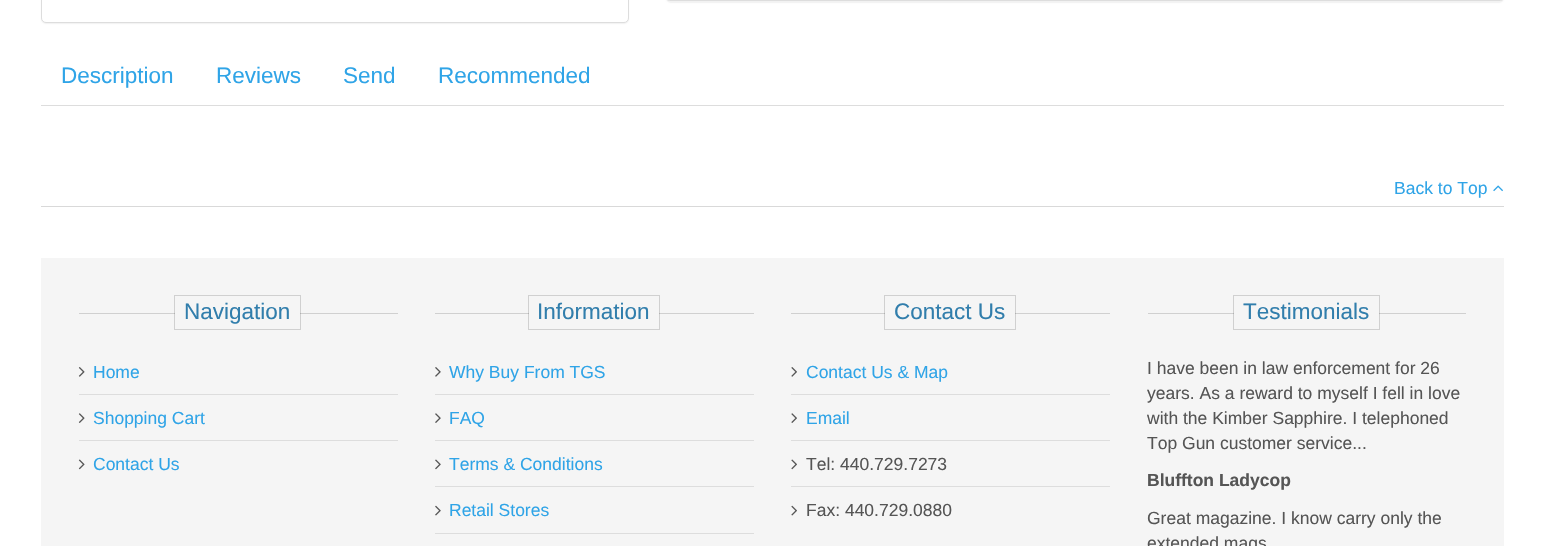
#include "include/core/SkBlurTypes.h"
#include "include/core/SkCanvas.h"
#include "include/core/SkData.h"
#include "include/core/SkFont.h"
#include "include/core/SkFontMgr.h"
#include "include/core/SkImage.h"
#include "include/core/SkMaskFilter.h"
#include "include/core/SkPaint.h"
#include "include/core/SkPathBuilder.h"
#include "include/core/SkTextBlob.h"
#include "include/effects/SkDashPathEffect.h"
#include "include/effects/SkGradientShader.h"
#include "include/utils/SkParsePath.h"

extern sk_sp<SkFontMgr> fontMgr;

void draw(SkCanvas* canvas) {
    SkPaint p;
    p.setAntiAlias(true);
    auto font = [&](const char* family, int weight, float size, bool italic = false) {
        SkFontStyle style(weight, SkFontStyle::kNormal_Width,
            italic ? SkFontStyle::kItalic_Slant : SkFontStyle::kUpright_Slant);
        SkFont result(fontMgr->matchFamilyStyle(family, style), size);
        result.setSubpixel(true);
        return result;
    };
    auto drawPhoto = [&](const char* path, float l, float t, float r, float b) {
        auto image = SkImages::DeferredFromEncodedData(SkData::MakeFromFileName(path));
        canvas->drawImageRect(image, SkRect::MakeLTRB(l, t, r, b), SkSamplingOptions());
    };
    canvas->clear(0xFFFFFFFF);
    p.setColor(0x0D000000);
    p.setMaskFilter(SkMaskFilter::MakeBlur(kNormal_SkBlurStyle, 0.5f));
    canvas->drawRoundRect(SkRect::MakeLTRB(41, -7, 629, 24), 5, 5, p);
    p.setMaskFilter(nullptr);
    p.setColor(0xFFFFFFFF);
    canvas->drawRoundRect(SkRect::MakeLTRB(41.5f, -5.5f, 628.5f, 22.5f), 4.5f, 4.5f, p);
    p.setStyle(SkPaint::kStroke_Style);
    p.setStrokeWidth(1);
    p.setColor(0xFFDDDDDD);
    canvas->drawRoundRect(SkRect::MakeLTRB(41.5f, -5.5f, 628.5f, 22.5f), 4.5f, 4.5f, p);
    p.setStyle(SkPaint::kFill_Style);
    p.setColor(0x0D000000);
    p.setMaskFilter(SkMaskFilter::MakeBlur(kNormal_SkBlurStyle, 0.5f));
    canvas->drawRoundRect(SkRect::MakeLTRB(666, -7, 1504, 3), 5, 5, p);
    p.setMaskFilter(nullptr);
    p.setStyle(SkPaint::kStroke_Style);
    p.setColor(0xFFDDDDDD);
    canvas->drawRoundRect(SkRect::MakeLTRB(666.5f, -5.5f, 1503.5f, 0.5f), 4.5f, 4.5f, p);
    p.setStyle(SkPaint::kFill_Style);
    canvas->drawRect(SkRect::MakeLTRB(41, 105, 1504, 106), p);
    auto font1 = font("Liberation Sans", 400, 22.5f);
    p.setColor(0xFF2FA4E7);
    {
        const struct { const char* s; float x, y; } items[] = {
            {"Description", 61, 83},
            {"Reviews", 216, 83},
            {"Send", 343, 83},
            {"Recommended", 438, 83},
        };
        for (auto [s, x, y] : items) {
            canvas->drawString(s, x, y, font1, p);
        }
    }
    p.setColor(0xFFD9D9D9);
    canvas->drawRect(SkRect::MakeLTRB(41, 206, 1504, 207), p);
    auto font2 = font("Liberation Sans", 400, 17.5f);
    p.setColor(0xFF2FA4E7);
    canvas->drawString("Back to Top", 1394, 194, font2, p);
    drawPhoto("media/1.png", 1493, 185, 1503, 192);
    p.setColor(0xFFF5F5F5);
    canvas->drawRect(SkRect::MakeLTRB(41, 258, 1504, 546), p);
    p.setStyle(SkPaint::kStroke_Style);
    p.setColor(0xFFD0D0D0);
    canvas->drawRect(SkRect::MakeLTRB(174.5f, 295.5f, 300.5f, 329.5f), p);
    p.setStyle(SkPaint::kFill_Style);
    p.setColor(0x26000000);
    canvas->drawRect(SkRect::MakeLTRB(79, 313, 175, 314), p);
    p.setColor(0xFF317EAC);
    canvas->drawString("Navigation", 184, 319, font1, p);
    p.setColor(0x26000000);
    canvas->drawRect(SkRect::MakeLTRB(300, 313, 398, 314), p);
    p.setColor(0xFFDDDDDD);
    canvas->drawRect(SkRect::MakeLTRB(79, 394, 398, 395), p);
    drawPhoto("media/2.png", 78, 367, 85, 377);
    p.setColor(0xFF2FA4E7);
    canvas->drawString("Home", 93, 378, font2, p);
    p.setColor(0xFFDDDDDD);
    canvas->drawRect(SkRect::MakeLTRB(79, 440, 398, 441), p);
    drawPhoto("media/3.png", 78, 413, 85, 423);
    p.setColor(0xFF2FA4E7);
    canvas->drawString("Shopping Cart", 93, 424, font2, p);
    drawPhoto("media/4.png", 78, 459, 85, 470);
    canvas->drawString("Contact Us", 93, 470, font2, p);
    p.setStyle(SkPaint::kStroke_Style);
    p.setColor(0xFFD0D0D0);
    canvas->drawRect(SkRect::MakeLTRB(528.5f, 295.5f, 659.5f, 329.5f), p);
    p.setStyle(SkPaint::kFill_Style);
    p.setColor(0x26000000);
    canvas->drawRect(SkRect::MakeLTRB(435, 313, 529, 314), p);
    p.setColor(0xFF317EAC);
    canvas->drawString("Information", 537, 319, font1, p);
    p.setColor(0x26000000);
    canvas->drawRect(SkRect::MakeLTRB(659, 313, 754, 314), p);
    p.setColor(0xFFDDDDDD);
    canvas->drawRect(SkRect::MakeLTRB(435, 394, 754, 395), p);
    drawPhoto("media/5.png", 435, 367, 441, 377);
    p.setColor(0xFF2FA4E7);
    canvas->drawString("Why Buy From TGS", 449, 378, font2, p);
    p.setColor(0xFFDDDDDD);
    canvas->drawRect(SkRect::MakeLTRB(435, 440, 754, 441), p);
    drawPhoto("media/6.png", 435, 413, 441, 423);
    p.setColor(0xFF2FA4E7);
    canvas->drawString("FAQ", 449, 424, font2, p);
    p.setColor(0xFFDDDDDD);
    canvas->drawRect(SkRect::MakeLTRB(435, 486, 754, 487), p);
    drawPhoto("media/7.png", 435, 459, 441, 470);
    p.setColor(0xFF2FA4E7);
    canvas->drawString("Terms & Conditions", 449, 470, font2, p);
    p.setColor(0xFFDDDDDD);
    canvas->drawRect(SkRect::MakeLTRB(435, 533, 754, 534), p);
    drawPhoto("media/8.png", 435, 505, 441, 516);
    p.setColor(0xFF2FA4E7);
    canvas->drawString("Retail Stores", 449, 516, font2, p);
    p.setStyle(SkPaint::kStroke_Style);
    p.setColor(0xFFD0D0D0);
    canvas->drawRect(SkRect::MakeLTRB(884.5f, 295.5f, 1015.5f, 329.5f), p);
    p.setStyle(SkPaint::kFill_Style);
    p.setColor(0x26000000);
    canvas->drawRect(SkRect::MakeLTRB(791, 313, 885, 314), p);
    p.setColor(0xFF317EAC);
    canvas->drawString("Contact Us", 894, 319, font1, p);
    p.setColor(0x26000000);
    canvas->drawRect(SkRect::MakeLTRB(1015, 313, 1110, 314), p);
    p.setColor(0xFFDDDDDD);
    canvas->drawRect(SkRect::MakeLTRB(791, 394, 1110, 395), p);
    drawPhoto("media/9.png", 791, 367, 797, 377);
    p.setColor(0xFF2FA4E7);
    canvas->drawString("Contact Us & Map", 806, 378, font2, p);
    p.setColor(0xFFDDDDDD);
    canvas->drawRect(SkRect::MakeLTRB(791, 440, 1110, 441), p);
    drawPhoto("media/10.png", 791, 413, 797, 423);
    p.setColor(0xFF2FA4E7);
    canvas->drawString("Email", 806, 424, font2, p);
    p.setColor(0xFFDDDDDD);
    canvas->drawRect(SkRect::MakeLTRB(791, 486, 1110, 487), p);
    drawPhoto("media/11.png", 791, 459, 797, 470);
    p.setColor(0xFF555555);
    canvas->drawString("Tel: 440.729.7273", 806, 470, font2, p);
    drawPhoto("media/12.png", 791, 505, 797, 516);
    canvas->drawString("Fax: 440.729.0880", 806, 516, font2, p);
    p.setStyle(SkPaint::kStroke_Style);
    p.setColor(0xFFD0D0D0);
    canvas->drawRect(SkRect::MakeLTRB(1233.5f, 295.5f, 1379.5f, 329.5f), p);
    p.setStyle(SkPaint::kFill_Style);
    p.setColor(0x26000000);
    canvas->drawRect(SkRect::MakeLTRB(1148, 313, 1234, 314), p);
    p.setColor(0xFF317EAC);
    canvas->drawString("Testimonials", 1243, 319, font1, p);
    p.setColor(0x26000000);
    canvas->drawRect(SkRect::MakeLTRB(1379, 313, 1466, 314), p);
    p.setColor(0xFF555555);
    {
        const struct { const char* s; float x, y; } items[] = {
            {"I have been in law enforcement for 26", 1147, 374},
            {"years. As a reward to myself I fell in love", 1147, 399},
            {"with the Kimber Sapphire. I telephoned", 1147, 424},
            {"Top Gun customer service...", 1147, 449},
        };
        for (auto [s, x, y] : items) {
            canvas->drawString(s, x, y, font2, p);
        }
    }
    auto font3 = font("Liberation Sans", 700, 17.5f);
    canvas->drawString("Bluffton Ladycop", 1147, 486, font3, p);
    canvas->drawString("Great magazine. I know carry only the", 1147, 524, font2, p);
    canvas->drawString("extended mags", 1147, 549, font2, p);
}
